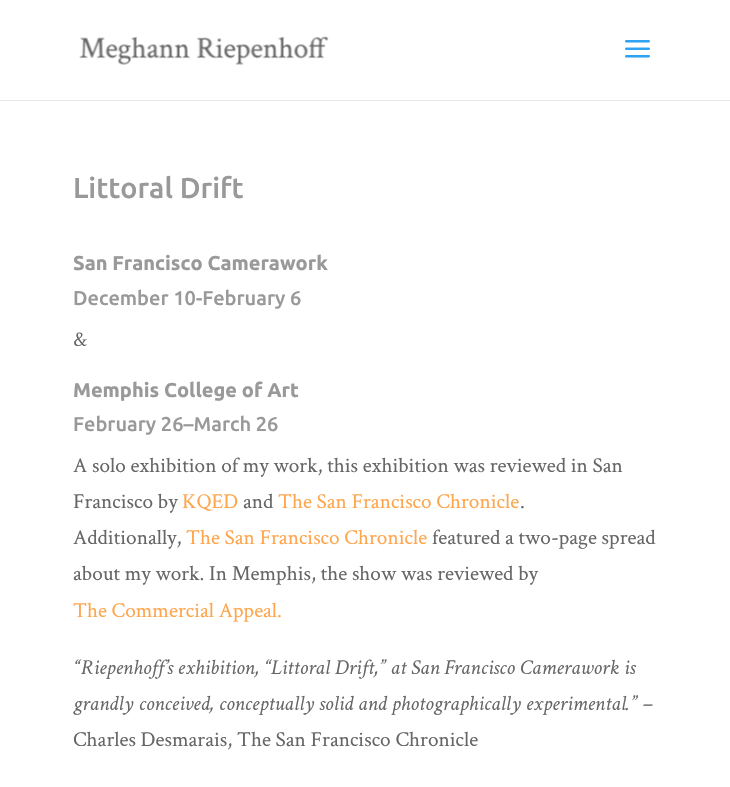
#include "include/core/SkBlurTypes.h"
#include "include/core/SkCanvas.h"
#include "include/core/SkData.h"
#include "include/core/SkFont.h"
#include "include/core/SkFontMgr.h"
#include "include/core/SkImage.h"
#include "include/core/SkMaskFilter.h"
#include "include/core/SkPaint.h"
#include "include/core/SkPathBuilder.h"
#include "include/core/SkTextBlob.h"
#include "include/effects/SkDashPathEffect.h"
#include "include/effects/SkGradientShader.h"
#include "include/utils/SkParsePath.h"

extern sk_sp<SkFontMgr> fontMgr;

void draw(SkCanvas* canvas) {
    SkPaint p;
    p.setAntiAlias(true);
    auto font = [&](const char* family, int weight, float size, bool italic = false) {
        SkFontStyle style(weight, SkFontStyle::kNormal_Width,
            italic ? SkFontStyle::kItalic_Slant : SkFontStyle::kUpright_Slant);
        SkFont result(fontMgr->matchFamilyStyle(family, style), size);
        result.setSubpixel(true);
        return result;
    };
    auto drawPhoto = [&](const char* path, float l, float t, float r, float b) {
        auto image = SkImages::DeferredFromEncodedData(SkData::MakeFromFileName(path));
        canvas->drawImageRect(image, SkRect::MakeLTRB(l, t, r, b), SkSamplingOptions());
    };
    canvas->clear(0xFFFFFFFF);
    p.setColor(0xFFE6E6E6);
    canvas->drawRect(SkRect::MakeLTRB(0, 100, 730, 101), p);
    drawPhoto("media/1.png", 79, 36, 329, 65);
    drawPhoto("media/2.png", 625, 40, 650, 58);
    auto font1 = font("Ubuntu", 500, 28.75f);
    p.setColor(0xFF999999);
    canvas->drawString("Littoral Drift", 73, 198, font1, p);
    auto font2 = font("Ubuntu", 700, 20);
    canvas->drawString("San Francisco Camerawork", 73, 270, font2, p);
    auto font3 = font("Ubuntu", 500, 20);
    canvas->drawString("December 10-February 6", 73, 305, font3, p);
    auto font4 = font("Crimson Text", 400, 21.25f);
    p.setColor(0xFF666666);
    canvas->drawString("&", 73, 346, font4, p);
    p.setColor(0xFF999999);
    canvas->drawString("Memphis College of Art", 73, 397, font2, p);
    canvas->drawString("February 26–March 26", 73, 431, font3, p);
    p.setColor(0xFF666666);
    canvas->drawString("A solo exhibition of my work, this exhibition was reviewed in San", 73, 472, font4, p);
    canvas->drawString("Francisco by", 73, 508, font4, p);
    p.setColor(0xFFFEA64E);
    canvas->drawString("KQED", 182, 508, font4, p);
    p.setColor(0xFF666666);
    canvas->drawString("and", 243, 508, font4, p);
    p.setColor(0xFFFEA64E);
    canvas->drawString("The San Francisco Chronicle", 278, 508, font4, p);
    p.setColor(0xFF666666);
    canvas->drawString(".", 520, 508, font4, p);
    canvas->drawString("Additionally,", 73, 544, font4, p);
    p.setColor(0xFFFEA64E);
    canvas->drawString("The San Francisco Chronicle", 186, 544, font4, p);
    p.setColor(0xFF666666);
    canvas->drawString("featured a two-page spread", 432, 544, font4, p);
    canvas->drawString("about my work. In Memphis, the show was reviewed by", 73, 580, font4, p);
    p.setColor(0xFFFEA64E);
    canvas->drawString("The Commercial Appeal.", 73, 617, font4, p);
    auto font5 = font("Crimson Text", 400, 21.25f, true);
    p.setColor(0xFF666666);
    canvas->drawString("“Riepenhoff’s exhibition, “Littoral Drift,” at San Francisco Camerawork is", 73, 674, font5, p);
    canvas->drawString("grandly conceived, conceptually solid and photographically experimental.” –", 73, 710, font5, p);
    canvas->drawString("Charles Desmarais, The San Francisco Chronicle", 73, 746, font4, p);
}
